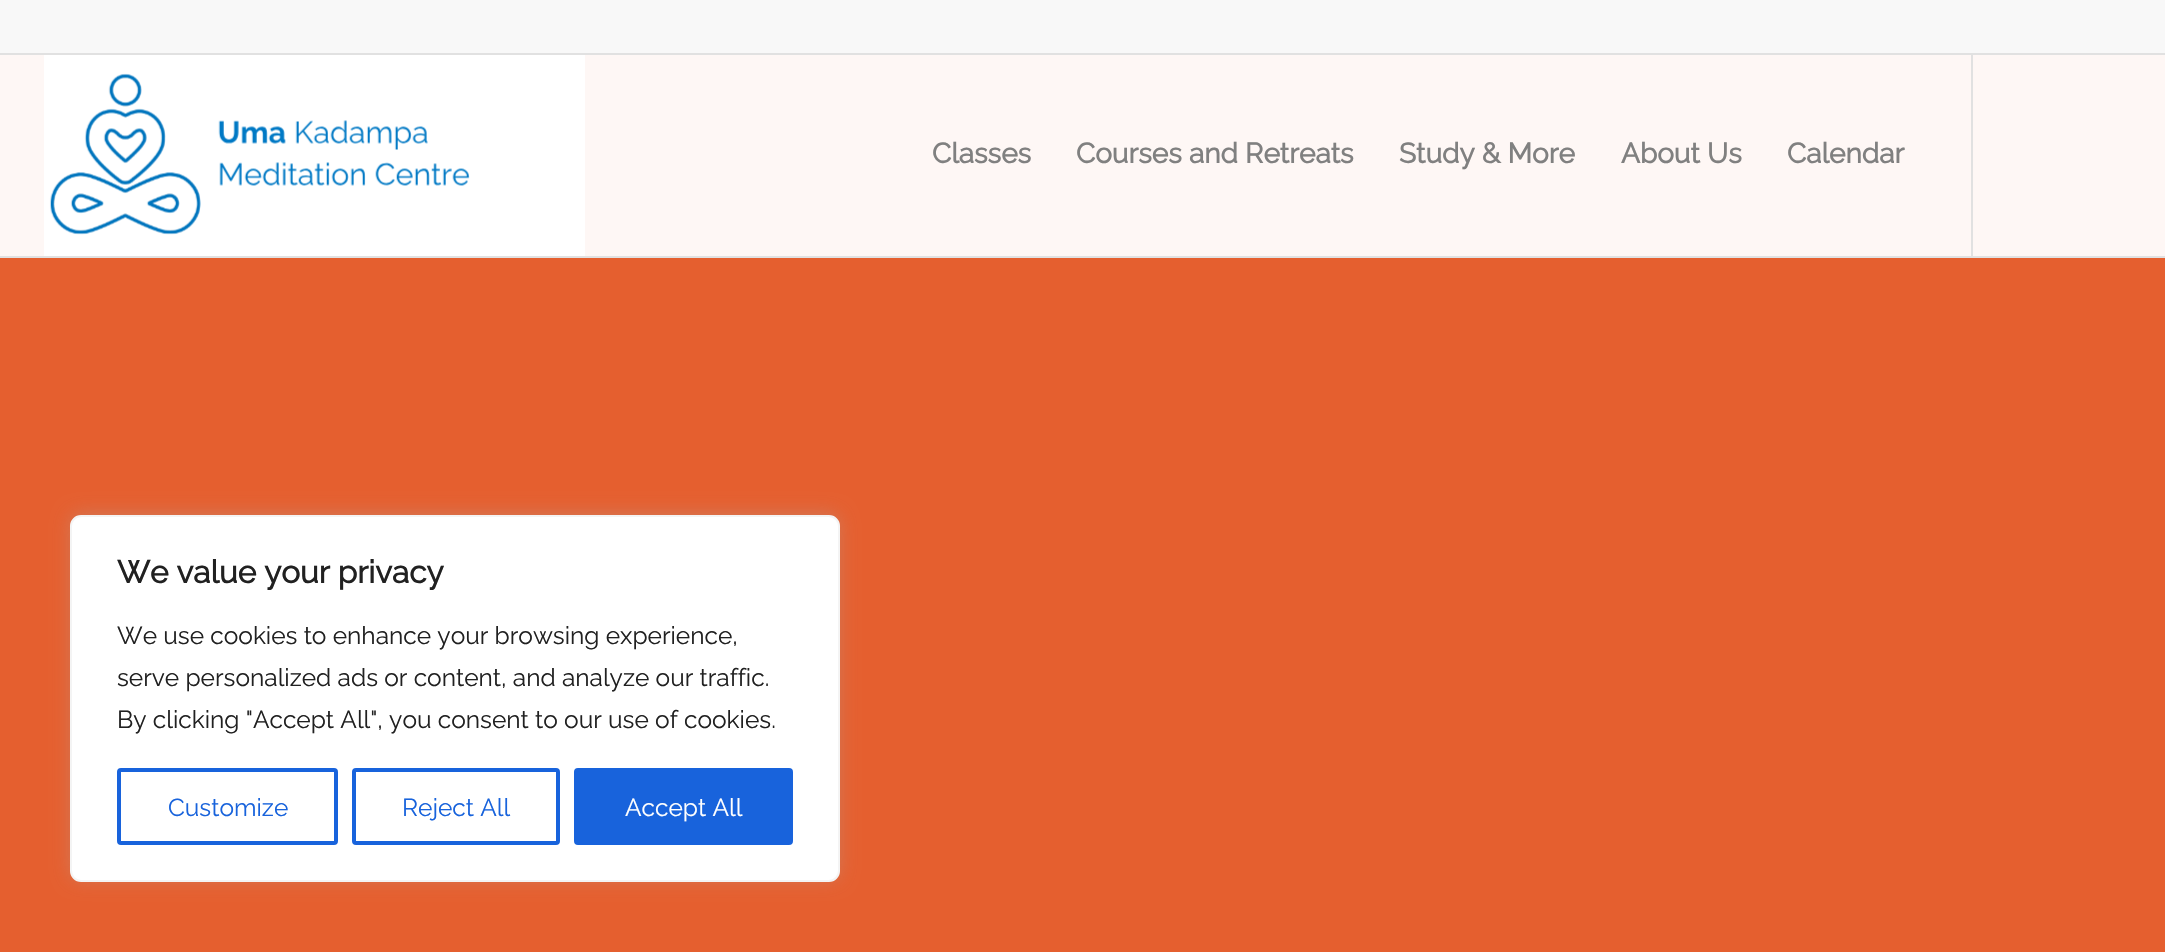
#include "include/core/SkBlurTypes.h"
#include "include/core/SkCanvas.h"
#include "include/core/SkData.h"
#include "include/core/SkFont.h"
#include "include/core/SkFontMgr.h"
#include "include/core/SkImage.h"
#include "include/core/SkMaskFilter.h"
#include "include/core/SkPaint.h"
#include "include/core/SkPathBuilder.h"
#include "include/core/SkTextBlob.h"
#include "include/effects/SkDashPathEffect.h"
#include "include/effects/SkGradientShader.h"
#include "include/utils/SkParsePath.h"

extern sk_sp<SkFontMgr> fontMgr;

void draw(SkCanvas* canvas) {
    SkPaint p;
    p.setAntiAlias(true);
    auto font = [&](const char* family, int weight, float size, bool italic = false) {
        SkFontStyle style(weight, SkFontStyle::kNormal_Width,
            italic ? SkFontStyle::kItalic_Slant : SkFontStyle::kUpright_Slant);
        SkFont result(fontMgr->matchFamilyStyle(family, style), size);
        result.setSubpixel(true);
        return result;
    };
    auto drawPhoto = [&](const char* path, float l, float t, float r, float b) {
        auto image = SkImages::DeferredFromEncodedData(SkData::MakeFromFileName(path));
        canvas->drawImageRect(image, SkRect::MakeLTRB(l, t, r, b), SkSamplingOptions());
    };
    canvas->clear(0xFFE55F2F);
    {
        const struct { float l, t, r, b; SkColor color; } items[] = {
            {0, 55, 2165, 256, 0xFFFEF7F5},
            {0, 0, 2165, 53, 0xFFF8F8F8},
            {1971, 53, 1973, 256, 0xFFE1E1E1},
            {0, 53, 2165, 55, 0xFFE1E1E1},
            {0, 256, 2165, 258, 0xFFE1E1E1},
        };
        for (auto [l, t, r, b, color] : items) {
            p.setColor(color);
            canvas->drawRect(SkRect::MakeLTRB(l, t, r, b), p);
        }
    }
    drawPhoto("media/1.png", 44, 55, 585, 256);
    auto font1 = font("Raleway", 700, 28);
    p.setColor(0xFF808080);
    {
        const struct { const char* s; float x, y; } items[] = {
            {"Classes", 932, 163},
            {"Courses and Retreats", 1076, 163},
            {"Study & More", 1399, 163},
            {"About Us", 1621, 163},
            {"Calendar", 1787, 163},
        };
        for (auto [s, x, y] : items) {
            canvas->drawString(s, x, y, font1, p);
        }
    }
    p.setColor(0x4DACABAB);
    p.setMaskFilter(SkMaskFilter::MakeBlur(kNormal_SkBlurStyle, 9));
    canvas->drawRoundRect(SkRect::MakeLTRB(70, 513, 840, 880), 11, 11, p);
    p.setMaskFilter(nullptr);
    p.setColor(0xFFFFFFFF);
    canvas->drawRoundRect(SkRect::MakeLTRB(71, 516, 839, 881), 10, 10, p);
    p.setStyle(SkPaint::kStroke_Style);
    p.setStrokeWidth(2);
    p.setColor(0xFFF4F4F4);
    canvas->drawRoundRect(SkRect::MakeLTRB(71, 516, 839, 881), 10, 10, p);
    auto font2 = font("Raleway", 700, 31.5f);
    p.setStyle(SkPaint::kFill_Style);
    p.setColor(0xFF212121);
    canvas->drawString("We value your privacy", 117, 583, font2, p);
    auto font3 = font("Raleway", 100, 24.5f);
    {
        const struct { const char* s; float x, y; } items[] = {
            {"We use cookies to enhance your browsing experience,", 117, 644},
            {"serve personalized ads or content, and analyze our traffic.", 117, 686},
            {"By clicking \"Accept All\", you consent to our use of cookies.", 117, 728},
        };
        for (auto [s, x, y] : items) {
            canvas->drawString(s, x, y, font3, p);
        }
    }
    p.setStyle(SkPaint::kStroke_Style);
    p.setStrokeWidth(4);
    p.setColor(0xFF1863DC);
    canvas->drawRoundRect(SkRect::MakeLTRB(119, 770, 336, 843), 2, 2, p);
    p.setStyle(SkPaint::kFill_Style);
    canvas->drawString("Customize", 168, 816, font3, p);
    p.setStyle(SkPaint::kStroke_Style);
    canvas->drawRoundRect(SkRect::MakeLTRB(354, 770, 558, 843), 2, 2, p);
    p.setStyle(SkPaint::kFill_Style);
    canvas->drawString("Reject All", 402, 816, font3, p);
    canvas->drawRoundRect(SkRect::MakeLTRB(576, 770, 791, 843), 2, 2, p);
    p.setStyle(SkPaint::kStroke_Style);
    canvas->drawRoundRect(SkRect::MakeLTRB(576, 770, 791, 843), 2, 2, p);
    p.setStyle(SkPaint::kFill_Style);
    p.setColor(0xFFFFFFFF);
    canvas->drawString("Accept All", 625, 816, font3, p);
}
